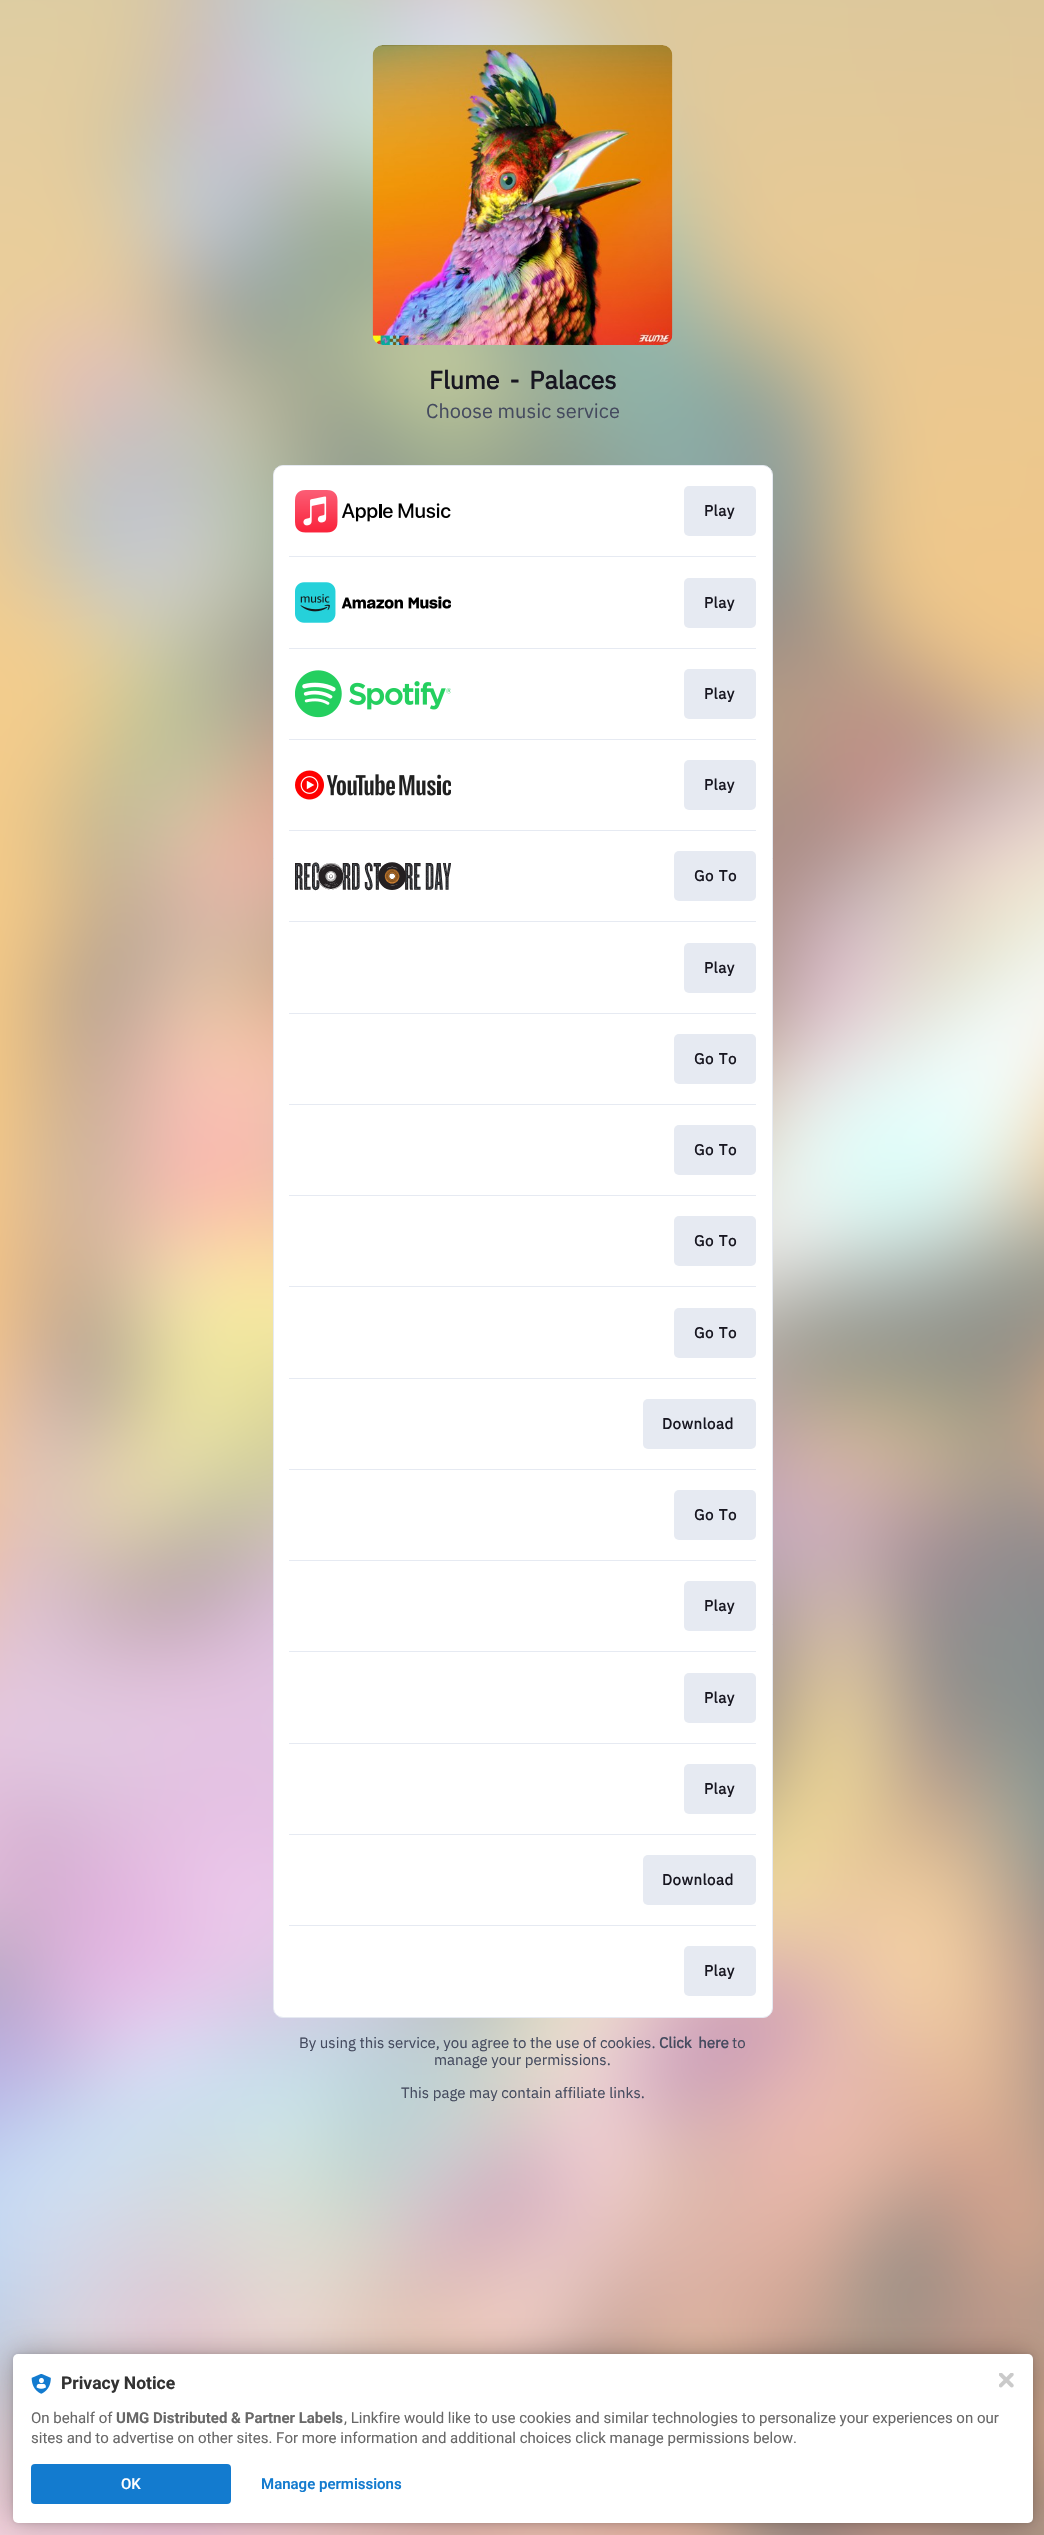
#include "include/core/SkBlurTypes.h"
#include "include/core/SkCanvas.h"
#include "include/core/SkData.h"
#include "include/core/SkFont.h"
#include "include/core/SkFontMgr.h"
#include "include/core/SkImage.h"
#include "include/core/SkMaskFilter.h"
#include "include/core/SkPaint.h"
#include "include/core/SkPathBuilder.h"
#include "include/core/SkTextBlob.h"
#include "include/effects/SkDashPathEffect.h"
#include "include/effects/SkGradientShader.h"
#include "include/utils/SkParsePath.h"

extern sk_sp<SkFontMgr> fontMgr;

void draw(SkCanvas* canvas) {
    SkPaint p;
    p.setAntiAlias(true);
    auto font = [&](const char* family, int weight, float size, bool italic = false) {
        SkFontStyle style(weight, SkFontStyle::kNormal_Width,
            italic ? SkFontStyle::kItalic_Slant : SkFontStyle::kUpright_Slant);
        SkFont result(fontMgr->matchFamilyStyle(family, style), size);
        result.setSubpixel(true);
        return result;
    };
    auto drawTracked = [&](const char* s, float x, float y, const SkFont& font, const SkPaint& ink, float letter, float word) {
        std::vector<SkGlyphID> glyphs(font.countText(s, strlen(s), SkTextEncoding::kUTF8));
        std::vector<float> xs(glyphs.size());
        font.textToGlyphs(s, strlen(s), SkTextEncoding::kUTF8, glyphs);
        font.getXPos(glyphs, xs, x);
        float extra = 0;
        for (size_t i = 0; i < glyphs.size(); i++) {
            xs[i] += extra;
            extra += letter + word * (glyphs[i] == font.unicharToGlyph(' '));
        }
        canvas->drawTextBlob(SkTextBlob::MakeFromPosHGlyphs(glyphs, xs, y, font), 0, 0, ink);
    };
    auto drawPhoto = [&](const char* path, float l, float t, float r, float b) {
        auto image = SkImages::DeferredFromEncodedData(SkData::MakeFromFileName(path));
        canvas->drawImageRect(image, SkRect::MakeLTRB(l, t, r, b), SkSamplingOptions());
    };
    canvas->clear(0xFFFFFFFF);
    drawPhoto("media/1.png", 0, 0, 1044, 2535);
    drawPhoto("media/2.png", 372, 45, 673, 345);
    auto font1 = font("IBM Plex Sans", 400, 15);
    p.setColor(0xFFD69D3A);
    canvas->drawString("…", 466, 100, font1, p);
    auto font2 = font("IBM Plex Sans", 700, 25);
    p.setColor(0xFF181721);
    drawTracked("Flume - Palaces", 429, 389, font2, p, 0, 4);
    auto font3 = font("IBM Plex Sans", 400, 20);
    p.setColor(0xFF454B5F);
    canvas->drawString("Choose music service", 426, 418, font3, p);
    p.setColor(0xFFFFFFFF);
    canvas->drawRoundRect(SkRect::MakeLTRB(273.5f, 465.5f, 772.5f, 2017.5f), 9.5f, 9.5f, p);
    p.setStyle(SkPaint::kStroke_Style);
    p.setStrokeWidth(1);
    p.setColor(0xFFE6EAF2);
    canvas->drawRoundRect(SkRect::MakeLTRB(273.5f, 465.5f, 772.5f, 2017.5f), 9.5f, 9.5f, p);
    p.setStyle(SkPaint::kFill_Style);
    p.setColor(0xFFFFFFFF);
    canvas->drawRoundRect(SkRect::MakeLTRB(274, 466, 771, 2016), 9, 9, p);
    drawPhoto("media/3.png", 295, 490, 451, 533);
    p.setColor(0xFFE6EAF2);
    canvas->drawRoundRect(SkRect::MakeLTRB(684, 486, 756, 536), 5, 5, p);
    auto font4 = font("IBM Plex Sans", 700, 15);
    p.setColor(0xFF181721);
    drawTracked("Play", 704, 516, font4, p, 0.5f, 0);
    p.setColor(0xFFE6EAF2);
    canvas->drawRect(SkRect::MakeLTRB(289, 556, 756, 557), p);
    drawPhoto("media/4.png", 295, 582, 451, 623);
    canvas->drawRoundRect(SkRect::MakeLTRB(684, 578, 756, 628), 5, 5, p);
    p.setColor(0xFF181721);
    drawTracked("Play", 704, 608, font4, p, 0.5f, 0);
    p.setColor(0xFFE6EAF2);
    canvas->drawRect(SkRect::MakeLTRB(289, 648, 756, 649), p);
    drawPhoto("media/5.png", 295, 670, 451, 718);
    canvas->drawRoundRect(SkRect::MakeLTRB(684, 669, 756, 719), 5, 5, p);
    p.setColor(0xFF181721);
    drawTracked("Play", 704, 699, font4, p, 0.5f, 0);
    p.setColor(0xFFE6EAF2);
    canvas->drawRect(SkRect::MakeLTRB(289, 739, 756, 740), p);
    drawPhoto("media/6.png", 295, 770, 451, 800);
    canvas->drawRoundRect(SkRect::MakeLTRB(684, 760, 756, 810), 5, 5, p);
    p.setColor(0xFF181721);
    drawTracked("Play", 704, 790, font4, p, 0.5f, 0);
    p.setColor(0xFFE6EAF2);
    canvas->drawRect(SkRect::MakeLTRB(289, 830, 756, 831), p);
    drawPhoto("media/7.png", 295, 862, 451, 891);
    canvas->drawRoundRect(SkRect::MakeLTRB(674, 851, 756, 901), 5, 5, p);
    p.setColor(0xFF181721);
    drawTracked("Go To", 694, 881, font4, p, 0.5f, 1);
    p.setColor(0xFFE6EAF2);
    canvas->drawRect(SkRect::MakeLTRB(289, 921, 756, 922), p);
    canvas->drawRoundRect(SkRect::MakeLTRB(684, 943, 756, 993), 5, 5, p);
    p.setColor(0xFF181721);
    drawTracked("Play", 704, 973, font4, p, 0.5f, 0);
    p.setColor(0xFFE6EAF2);
    canvas->drawRect(SkRect::MakeLTRB(289, 1013, 756, 1014), p);
    canvas->drawRoundRect(SkRect::MakeLTRB(674, 1034, 756, 1084), 5, 5, p);
    p.setColor(0xFF181721);
    drawTracked("Go To", 694, 1064, font4, p, 0.5f, 1);
    p.setColor(0xFFE6EAF2);
    canvas->drawRect(SkRect::MakeLTRB(289, 1104, 756, 1105), p);
    canvas->drawRoundRect(SkRect::MakeLTRB(674, 1125, 756, 1175), 5, 5, p);
    p.setColor(0xFF181721);
    drawTracked("Go To", 694, 1155, font4, p, 0.5f, 1);
    p.setColor(0xFFE6EAF2);
    canvas->drawRect(SkRect::MakeLTRB(289, 1195, 756, 1196), p);
    canvas->drawRoundRect(SkRect::MakeLTRB(674, 1216, 756, 1266), 5, 5, p);
    p.setColor(0xFF181721);
    drawTracked("Go To", 694, 1246, font4, p, 0.5f, 1);
    p.setColor(0xFFE6EAF2);
    canvas->drawRect(SkRect::MakeLTRB(289, 1286, 756, 1287), p);
    canvas->drawRoundRect(SkRect::MakeLTRB(674, 1308, 756, 1358), 5, 5, p);
    p.setColor(0xFF181721);
    drawTracked("Go To", 694, 1338, font4, p, 0.5f, 1);
    p.setColor(0xFFE6EAF2);
    canvas->drawRect(SkRect::MakeLTRB(289, 1378, 756, 1379), p);
    canvas->drawRoundRect(SkRect::MakeLTRB(643, 1399, 756, 1449), 5, 5, p);
    p.setColor(0xFF181721);
    drawTracked("Download", 662, 1429, font4, p, 0.5f, 0);
    p.setColor(0xFFE6EAF2);
    canvas->drawRect(SkRect::MakeLTRB(289, 1469, 756, 1470), p);
    canvas->drawRoundRect(SkRect::MakeLTRB(674, 1490, 756, 1540), 5, 5, p);
    p.setColor(0xFF181721);
    drawTracked("Go To", 694, 1520, font4, p, 0.5f, 1);
    p.setColor(0xFFE6EAF2);
    canvas->drawRect(SkRect::MakeLTRB(289, 1560, 756, 1561), p);
    canvas->drawRoundRect(SkRect::MakeLTRB(684, 1581, 756, 1631), 5, 5, p);
    p.setColor(0xFF181721);
    drawTracked("Play", 704, 1611, font4, p, 0.5f, 0);
    p.setColor(0xFFE6EAF2);
    canvas->drawRect(SkRect::MakeLTRB(289, 1651, 756, 1652), p);
    canvas->drawRoundRect(SkRect::MakeLTRB(684, 1673, 756, 1723), 5, 5, p);
    p.setColor(0xFF181721);
    drawTracked("Play", 704, 1703, font4, p, 0.5f, 0);
    p.setColor(0xFFE6EAF2);
    canvas->drawRect(SkRect::MakeLTRB(289, 1743, 756, 1744), p);
    canvas->drawRoundRect(SkRect::MakeLTRB(684, 1764, 756, 1814), 5, 5, p);
    p.setColor(0xFF181721);
    drawTracked("Play", 704, 1794, font4, p, 0.5f, 0);
    p.setColor(0xFFE6EAF2);
    canvas->drawRect(SkRect::MakeLTRB(289, 1834, 756, 1835), p);
    canvas->drawRoundRect(SkRect::MakeLTRB(643, 1855, 756, 1905), 5, 5, p);
    p.setColor(0xFF181721);
    drawTracked("Download", 662, 1885, font4, p, 0.5f, 0);
    p.setColor(0xFFE6EAF2);
    canvas->drawRect(SkRect::MakeLTRB(289, 1925, 756, 1926), p);
    canvas->drawRoundRect(SkRect::MakeLTRB(684, 1946, 756, 1996), 5, 5, p);
    p.setColor(0xFF181721);
    drawTracked("Play", 704, 1976, font4, p, 0.5f, 0);
    p.setColor(0xFF454B5F);
    canvas->drawString("By using this service, you agree to the use of cookies.", 299, 2048, font1, p);
    drawTracked("Click here", 659, 2048, font4, p, 0, 3);
    {
        const struct { const char* s; float x, y; } items[] = {
            {"to", 732, 2048},
            {"manage your permissions.", 434, 2065},
            {"This page may contain affiliate links.", 401, 2098},
        };
        for (auto [s, x, y] : items) {
            canvas->drawString(s, x, y, font1, p);
        }
    }
    p.setColor(0x1F000000);
    p.setMaskFilter(SkMaskFilter::MakeBlur(kNormal_SkBlurStyle, 2.5f));
    canvas->drawRoundRect(SkRect::MakeLTRB(13, 2354, 1033, 2523), 5, 5, p);
    p.setMaskFilter(nullptr);
    p.setColor(0x4D000000);
    p.setMaskFilter(SkMaskFilter::MakeBlur(kNormal_SkBlurStyle, 15));
    canvas->drawRoundRect(SkRect::MakeLTRB(13, 2354, 1033, 2523), 5, 5, p);
    p.setMaskFilter(nullptr);
    p.setColor(0xFFFFFFFF);
    canvas->drawRoundRect(SkRect::MakeLTRB(13, 2354, 1033, 2523), 5, 5, p);
    drawPhoto("media/8.png", 31, 2374, 51, 2394);
    auto font5 = font("Roboto", 700, 17.5f);
    p.setColor(0xFF323232);
    canvas->drawString("Privacy Notice", 61, 2389, font5, p);
    auto font6 = font("Roboto", 400, 15);
    p.setColor(0xFF686868);
    canvas->drawString("On behalf of", 31, 2423, font6, p);
    auto font7 = font("Roboto", 700, 15);
    canvas->drawString("UMG Distributed & Partner Labels", 116, 2423, font7, p);
    canvas->drawString(", Linkfire would like to use cookies and similar technologies to personalize your experiences on our", 344, 2423, font6, p);
    canvas->drawString("sites and to advertise on other sites. For more information and additional choices click manage permissions below.", 31, 2443, font6, p);
    p.setColor(0xFF137BCF);
    canvas->drawRoundRect(SkRect::MakeLTRB(31, 2464, 231, 2504), 4, 4, p);
    auto font8 = font("Roboto", 500, 15);
    p.setColor(0xFFFFFFFF);
    canvas->drawString("OK", 121, 2489, font8, p);
    auto font9 = font("Roboto", 600, 15);
    p.setColor(0xFF137BCF);
    canvas->drawString("Manage permissions", 261, 2489, font9, p);
    drawPhoto("media/9.png", 999, 2373, 1014, 2388);
}
